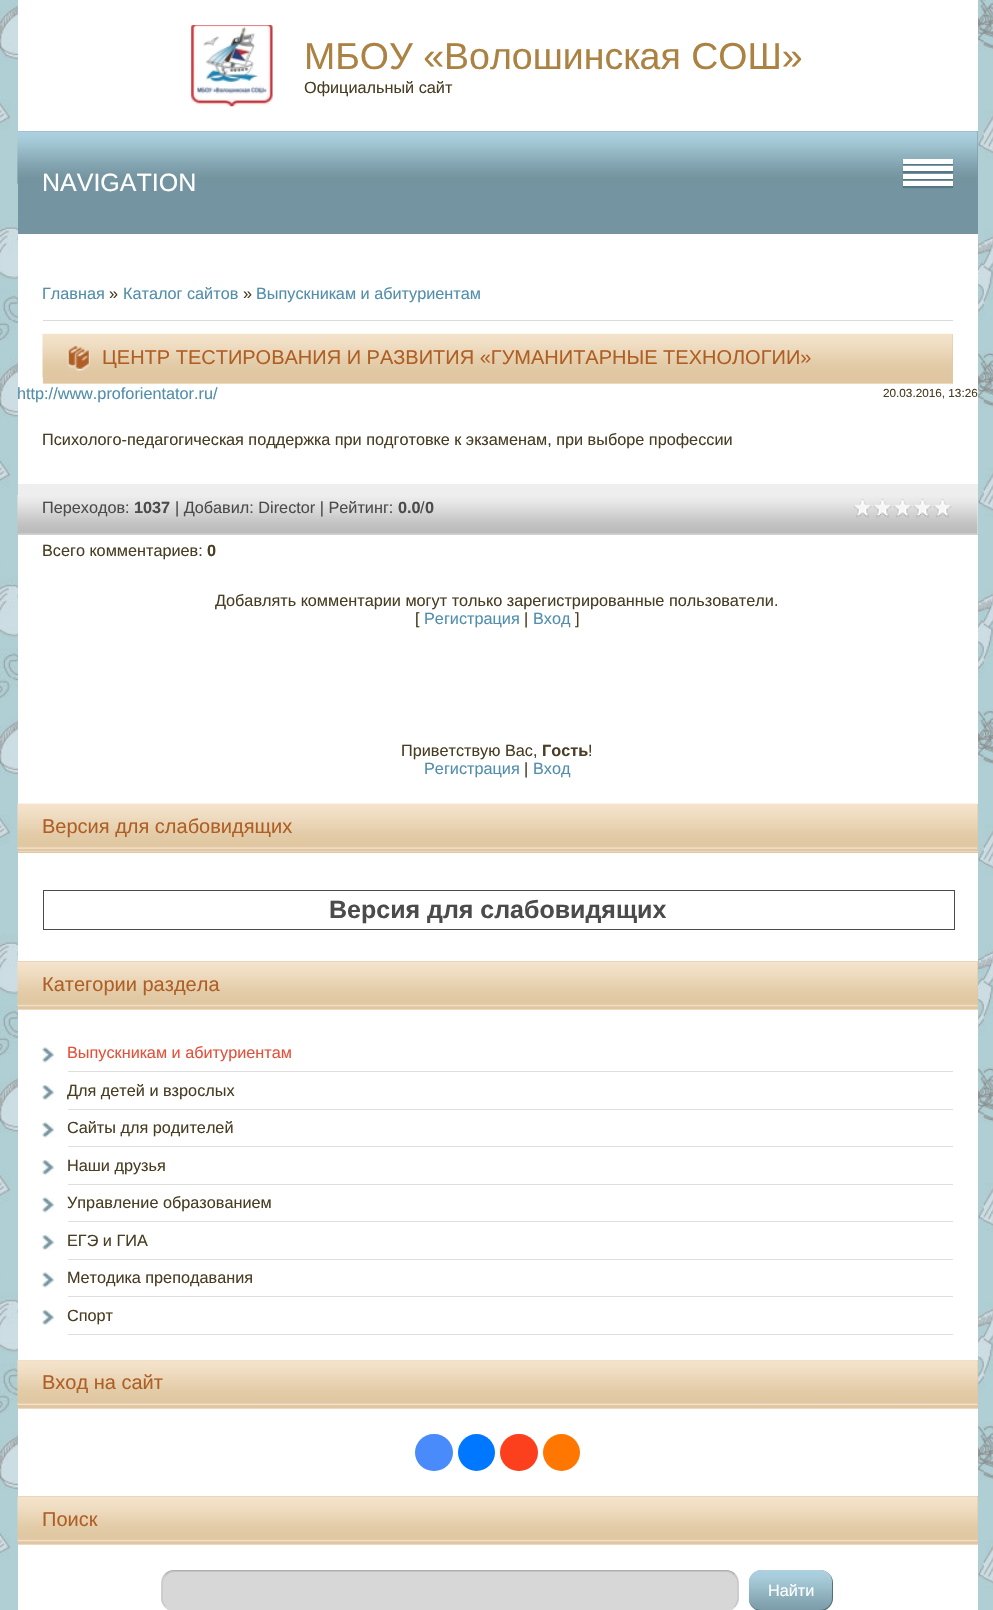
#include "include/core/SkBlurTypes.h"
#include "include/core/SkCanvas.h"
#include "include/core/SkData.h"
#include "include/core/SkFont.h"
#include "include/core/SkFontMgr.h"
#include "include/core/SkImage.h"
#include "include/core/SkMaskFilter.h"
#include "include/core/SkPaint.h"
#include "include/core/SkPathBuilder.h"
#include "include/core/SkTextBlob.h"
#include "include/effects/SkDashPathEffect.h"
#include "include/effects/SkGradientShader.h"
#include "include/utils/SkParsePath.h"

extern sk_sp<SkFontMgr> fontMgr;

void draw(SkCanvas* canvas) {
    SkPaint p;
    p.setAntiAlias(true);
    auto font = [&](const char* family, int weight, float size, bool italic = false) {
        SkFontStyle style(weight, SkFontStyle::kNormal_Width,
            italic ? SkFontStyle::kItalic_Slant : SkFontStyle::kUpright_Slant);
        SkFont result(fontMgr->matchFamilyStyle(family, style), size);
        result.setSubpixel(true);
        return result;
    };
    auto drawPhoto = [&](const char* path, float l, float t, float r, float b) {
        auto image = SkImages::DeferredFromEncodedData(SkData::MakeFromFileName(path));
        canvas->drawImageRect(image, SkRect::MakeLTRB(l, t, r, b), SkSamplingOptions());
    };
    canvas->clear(0xFFFFFFFF);
    drawPhoto("media/1.png", 0, 0, 993, 1610);
    p.setColor(0xFFFFFFFF);
    canvas->drawRect(SkRect::MakeLTRB(18, 0, 978, 131), p);
    drawPhoto("media/2.png", 191, 25, 273, 107);
    auto font1 = font("Liberation Sans", 400, 37.5f);
    p.setColor(0xFFAC8243);
    canvas->drawString("МБОУ «Волошинская СОШ»", 304, 69, font1, p);
    auto font2 = font("Liberation Sans", 400, 16.25f);
    p.setColor(0xFF493E24);
    canvas->drawString("Официальный сайт", 304, 93, font2, p);
    drawPhoto("media/3.png", 17, 140, 18, 184);
    p.setColor(0xFF7394A0);
    canvas->drawRect(SkRect::MakeLTRB(18, 131, 978, 234), p);
    drawPhoto("media/4.png", 17, 131, 978, 184);
    auto font3 = font("Liberation Sans", 400, 25);
    p.setColor(0xFFFFFFFF);
    canvas->drawString("NAVIGATION", 42, 191, font3, p);
    p.setColor(0xFF557684);
    p.setMaskFilter(SkMaskFilter::MakeBlur(kNormal_SkBlurStyle, 0.5f));
    canvas->drawRect(SkRect::MakeLTRB(903, 160, 953, 165), p);
    p.setMaskFilter(nullptr);
    p.setColor(0xFFFFFFFF);
    canvas->drawRect(SkRect::MakeLTRB(903, 159, 953, 164), p);
    p.setColor(0xFF557684);
    p.setMaskFilter(SkMaskFilter::MakeBlur(kNormal_SkBlurStyle, 0.5f));
    canvas->drawRect(SkRect::MakeLTRB(903, 168, 953, 173), p);
    p.setMaskFilter(nullptr);
    p.setColor(0xFFFFFFFF);
    canvas->drawRect(SkRect::MakeLTRB(903, 166, 953, 171), p);
    p.setColor(0xFF557684);
    p.setMaskFilter(SkMaskFilter::MakeBlur(kNormal_SkBlurStyle, 0.5f));
    canvas->drawRect(SkRect::MakeLTRB(903, 175, 953, 180), p);
    p.setMaskFilter(nullptr);
    p.setColor(0xFFFFFFFF);
    canvas->drawRect(SkRect::MakeLTRB(903, 174, 953, 179), p);
    p.setColor(0xFF557684);
    p.setMaskFilter(SkMaskFilter::MakeBlur(kNormal_SkBlurStyle, 0.5f));
    canvas->drawRect(SkRect::MakeLTRB(903, 183, 953, 188), p);
    p.setMaskFilter(nullptr);
    p.setColor(0xFFFFFFFF);
    canvas->drawRect(SkRect::MakeLTRB(903, 181, 953, 186), p);
    canvas->drawRect(SkRect::MakeLTRB(18, 234, 978, 1610), p);
    p.setColor(0xFF518EAD);
    canvas->drawString("Главная", 42, 299, font2, p);
    p.setColor(0xFF493E24);
    canvas->drawString("»", 109, 299, font2, p);
    p.setColor(0xFF518EAD);
    canvas->drawString("Каталог сайтов", 123, 299, font2, p);
    p.setColor(0xFF493E24);
    canvas->drawString("»", 243, 299, font2, p);
    p.setColor(0xFF518EAD);
    canvas->drawString("Выпускникам и абитуриентам", 256, 299, font2, p);
    p.setColor(0xFFDADADA);
    canvas->drawRect(SkRect::MakeLTRB(43, 320, 953, 321), p);
    p.setColor(0xFFE0C7A2);
    canvas->drawRect(SkRect::MakeLTRB(43, 334, 953, 383), p);
    drawPhoto("media/5.png", 42, 333, 953, 378);
    p.setColor(0xFFEDDABE);
    canvas->drawRect(SkRect::MakeLTRB(43, 383, 953, 384), p);
    drawPhoto("media/6.png", 67, 346, 90, 372);
    auto font4 = font("Liberation Sans", 400, 20);
    p.setColor(0xFFAF5F24);
    canvas->drawString("ЦЕНТР ТЕСТИРОВАНИЯ И РАЗВИТИЯ «ГУМАНИТАРНЫЕ ТЕХНОЛОГИИ»", 102, 364, font4, p);
    p.setColor(0xFF518EAD);
    canvas->drawString("http://www.proforientator.ru/", 17, 399, font2, p);
    auto font5 = font("Liberation Sans", 400, 11.75f);
    p.setColor(0xFF493E24);
    canvas->drawString("20.03.2016, 13:26", 883, 397, font5, p);
    canvas->drawString("Психолого-педагогическая поддержка при подготовке к экзаменам, при выборе профессии", 42, 445, font2, p);
    p.setColor(0xFFEEEEEE);
    canvas->drawRect(SkRect::MakeLTRB(18, 484, 978, 534), p);
    drawPhoto("media/7.png", 17, 495, 978, 534);
    p.setColor(0xFFD1D1D1);
    canvas->drawRect(SkRect::MakeLTRB(18, 534, 978, 535), p);
    p.setColor(0xFF4B4B4B);
    canvas->drawString("Переходов:", 42, 513, font2, p);
    auto font6 = font("Liberation Sans", 700, 16.25f);
    canvas->drawString("1037", 134, 513, font6, p);
    canvas->drawString("| Добавил: Director | Рейтинг:", 175, 513, font2, p);
    canvas->drawString("0.0 0", 398, 513, font6, p);
    drawPhoto("media/8.png", 853, 498, 952, 519);
    canvas->drawString("/", 420, 513, font2, p);
    p.setColor(0xFF493E24);
    canvas->drawString("Всего комментариев:", 42, 556, font2, p);
    canvas->drawString("0", 207, 556, font6, p);
    canvas->drawString("Добавлять комментарии могут только зарегистрированные пользователи.", 215, 606, font2, p);
    canvas->drawString("[", 415, 624, font2, p);
    p.setColor(0xFF518EAD);
    canvas->drawString("Регистрация", 424, 624, font2, p);
    p.setColor(0xFF493E24);
    canvas->drawString("|", 524, 624, font2, p);
    p.setColor(0xFF518EAD);
    canvas->drawString("Вход", 533, 624, font2, p);
    p.setColor(0xFF493E24);
    canvas->drawString("]", 575, 624, font2, p);
    canvas->drawString("Приветствую Вас,", 401, 756, font2, p);
    canvas->drawString("Гость", 542, 756, font6, p);
    canvas->drawString("!", 588, 756, font2, p);
    p.setColor(0xFF518EAD);
    canvas->drawString("Регистрация", 424, 774, font2, p);
    p.setColor(0xFF493E24);
    canvas->drawString("|", 524, 774, font2, p);
    p.setColor(0xFF518EAD);
    canvas->drawString("Вход", 533, 774, font2, p);
    p.setColor(0xFFE0C7A2);
    canvas->drawRect(SkRect::MakeLTRB(18, 804, 978, 853), p);
    drawPhoto("media/9.png", 17, 803, 978, 849);
    p.setColor(0xFFEDDABE);
    canvas->drawRect(SkRect::MakeLTRB(18, 851, 978, 852), p);
    p.setColor(0xFFAF5F24);
    canvas->drawString("Версия для слабовидящих", 42, 833, font4, p);
    p.setStyle(SkPaint::kStroke_Style);
    p.setStrokeWidth(1);
    p.setColor(0xFF4B4B4B);
    canvas->drawRect(SkRect::MakeLTRB(43.5f, 890.5f, 954.5f, 929.5f), p);
    auto font7 = font("Liberation Sans", 700, 25);
    p.setStyle(SkPaint::kFill_Style);
    canvas->drawString("Версия для слабовидящих", 329, 918, font7, p);
    p.setColor(0xFFE0C7A2);
    canvas->drawRect(SkRect::MakeLTRB(18, 961, 978, 1009), p);
    drawPhoto("media/10.png", 17, 961, 978, 1007);
    p.setColor(0xFFEDDABE);
    canvas->drawRect(SkRect::MakeLTRB(18, 1009, 978, 1010), p);
    p.setColor(0xFFAF5F24);
    canvas->drawString("Категории раздела", 42, 991, font4, p);
    drawPhoto("media/11.png", 42, 1047, 54, 1063);
    p.setColor(0xFFDEDEDE);
    canvas->drawRect(SkRect::MakeLTRB(68, 1071, 953, 1072), p);
    p.setColor(0xFFE4513A);
    canvas->drawString("Выпускникам и абитуриентам", 67, 1058, font2, p);
    drawPhoto("media/12.png", 42, 1085, 54, 1100);
    p.setColor(0xFFDEDEDE);
    canvas->drawRect(SkRect::MakeLTRB(68, 1109, 953, 1110), p);
    p.setColor(0xFF493E24);
    canvas->drawString("Для детей и взрослых", 67, 1096, font2, p);
    drawPhoto("media/11.png", 42, 1122, 54, 1138);
    p.setColor(0xFFDEDEDE);
    canvas->drawRect(SkRect::MakeLTRB(68, 1146, 953, 1147), p);
    p.setColor(0xFF493E24);
    canvas->drawString("Сайты для родителей", 67, 1133, font2, p);
    drawPhoto("media/12.png", 42, 1160, 54, 1175);
    p.setColor(0xFFDEDEDE);
    canvas->drawRect(SkRect::MakeLTRB(68, 1184, 953, 1185), p);
    p.setColor(0xFF493E24);
    canvas->drawString("Наши друзья", 67, 1171, font2, p);
    drawPhoto("media/11.png", 42, 1197, 54, 1213);
    p.setColor(0xFFDEDEDE);
    canvas->drawRect(SkRect::MakeLTRB(68, 1221, 953, 1222), p);
    p.setColor(0xFF493E24);
    canvas->drawString("Управление образованием", 67, 1208, font2, p);
    drawPhoto("media/12.png", 42, 1235, 54, 1250);
    p.setColor(0xFFDEDEDE);
    canvas->drawRect(SkRect::MakeLTRB(68, 1259, 953, 1260), p);
    p.setColor(0xFF493E24);
    canvas->drawString("ЕГЭ и ГИА", 67, 1246, font2, p);
    drawPhoto("media/11.png", 42, 1272, 54, 1288);
    p.setColor(0xFFDEDEDE);
    canvas->drawRect(SkRect::MakeLTRB(68, 1296, 953, 1297), p);
    p.setColor(0xFF493E24);
    canvas->drawString("Методика преподавания", 67, 1283, font2, p);
    drawPhoto("media/12.png", 42, 1310, 54, 1325);
    p.setColor(0xFFDEDEDE);
    canvas->drawRect(SkRect::MakeLTRB(68, 1334, 953, 1335), p);
    p.setColor(0xFF493E24);
    canvas->drawString("Спорт", 67, 1321, font2, p);
    p.setColor(0xFFE0C7A2);
    canvas->drawRect(SkRect::MakeLTRB(18, 1360, 978, 1408), p);
    drawPhoto("media/13.png", 17, 1360, 978, 1405);
    p.setColor(0xFFEDDABE);
    canvas->drawRect(SkRect::MakeLTRB(18, 1408, 978, 1409), p);
    p.setColor(0xFFAF5F24);
    canvas->drawString("Вход на сайт", 42, 1389, font4, p);
    p.setColor(0xFF498BFA);
    canvas->drawRoundRect(SkRect::MakeLTRB(415, 1434, 453, 1471), 18.5f, 18.5f, p);
    p.setColor(0xFF0077FF);
    canvas->drawCircle(476.5f, 1452.5f, 18.5f, p);
    p.setColor(0xFFFC3F1D);
    canvas->drawRoundRect(SkRect::MakeLTRB(500, 1434, 538, 1471), 18.5f, 18.5f, p);
    p.setColor(0xFFFF7700);
    canvas->drawCircle(561.5f, 1452.5f, 18.5f, p);
    p.setColor(0xFFE0C7A2);
    canvas->drawRect(SkRect::MakeLTRB(18, 1496, 978, 1544), p);
    drawPhoto("media/14.png", 17, 1496, 978, 1542);
    p.setColor(0xFFEDDABE);
    canvas->drawRect(SkRect::MakeLTRB(18, 1544, 978, 1545), p);
    p.setColor(0xFFAF5F24);
    canvas->drawString("Поиск", 42, 1526, font4, p);
    p.setColor(0xFFD7D7D7);
    canvas->drawRoundRect(SkRect::MakeLTRB(161, 1570, 739, 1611), 13, 13, p);
    p.setColor(0xFFC2C2C2);
    canvas->drawPath(SkPathBuilder().moveTo(174, 1572).lineTo(726, 1572).cubicTo(732, 1572, 738, 1578, 738, 1584).lineTo(738, 1582).cubicTo(738, 1576, 733, 1571, 727, 1571).lineTo(174, 1571).cubicTo(169, 1571, 165, 1574, 164, 1579).cubicTo(166, 1575, 170, 1572, 174, 1572).close().detach(), p);
    p.setStyle(SkPaint::kStroke_Style);
    p.setStrokeWidth(1.2f);
    p.setColor(0xFFB0B0B0);
    canvas->drawPath(SkPathBuilder().moveTo(165.5f, 1574).cubicTo(167.5f, 1572, 170.5f, 1570.5f, 174, 1570.5f).lineTo(726, 1570.5f).cubicTo(729.5f, 1570.5f, 732.5f, 1572, 734.5f, 1574).detach(), p);
    p.setColor(0xFFC8C8C8);
    canvas->drawPath(SkPathBuilder().moveTo(734.5f, 1574).cubicTo(739, 1578.5f, 738, 1585, 738, 1590.5f).cubicTo(738, 1596.5f, 739, 1602.5f, 734.5f, 1607).detach(), p);
    p.setColor(0xFFD7D7D7);
    canvas->drawPath(SkPathBuilder().moveTo(734.5f, 1607).cubicTo(732.5f, 1609.5f, 729.5f, 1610.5f, 726, 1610.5f).lineTo(174, 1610.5f).cubicTo(170.5f, 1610.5f, 167.5f, 1609.5f, 165.5f, 1607).detach(), p);
    p.setColor(0xFFC8C8C8);
    canvas->drawPath(SkPathBuilder().moveTo(165.5f, 1607).cubicTo(161, 1602.5f, 162, 1596.5f, 162, 1590.5f).cubicTo(162, 1585, 161, 1578.5f, 165.5f, 1574).detach(), p);
    p.setStyle(SkPaint::kFill_Style);
    p.setColor(0xFF7394A0);
    canvas->drawRoundRect(SkRect::MakeLTRB(749, 1570, 833, 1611), 13, 13, p);
    drawPhoto("media/15.png", 748, 1570, 833, 1610);
    p.setColor(0x4D000000);
    canvas->drawPath(SkPathBuilder().moveTo(749, 1598).cubicTo(749, 1605, 755, 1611, 762, 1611).lineTo(820, 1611).cubicTo(827, 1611, 833, 1605, 833, 1598).lineTo(833, 1583).cubicTo(833, 1581, 832, 1578, 831, 1576).lineTo(832, 1581).lineTo(832, 1598).cubicTo(832, 1604, 827, 1610, 820, 1610).lineTo(761, 1610).cubicTo(754, 1610, 749, 1604, 749, 1598).close().detach(), p);
    p.setColor(0xFFFFFFFF);
    canvas->drawString("Найти", 768, 1596, font2, p);
}
